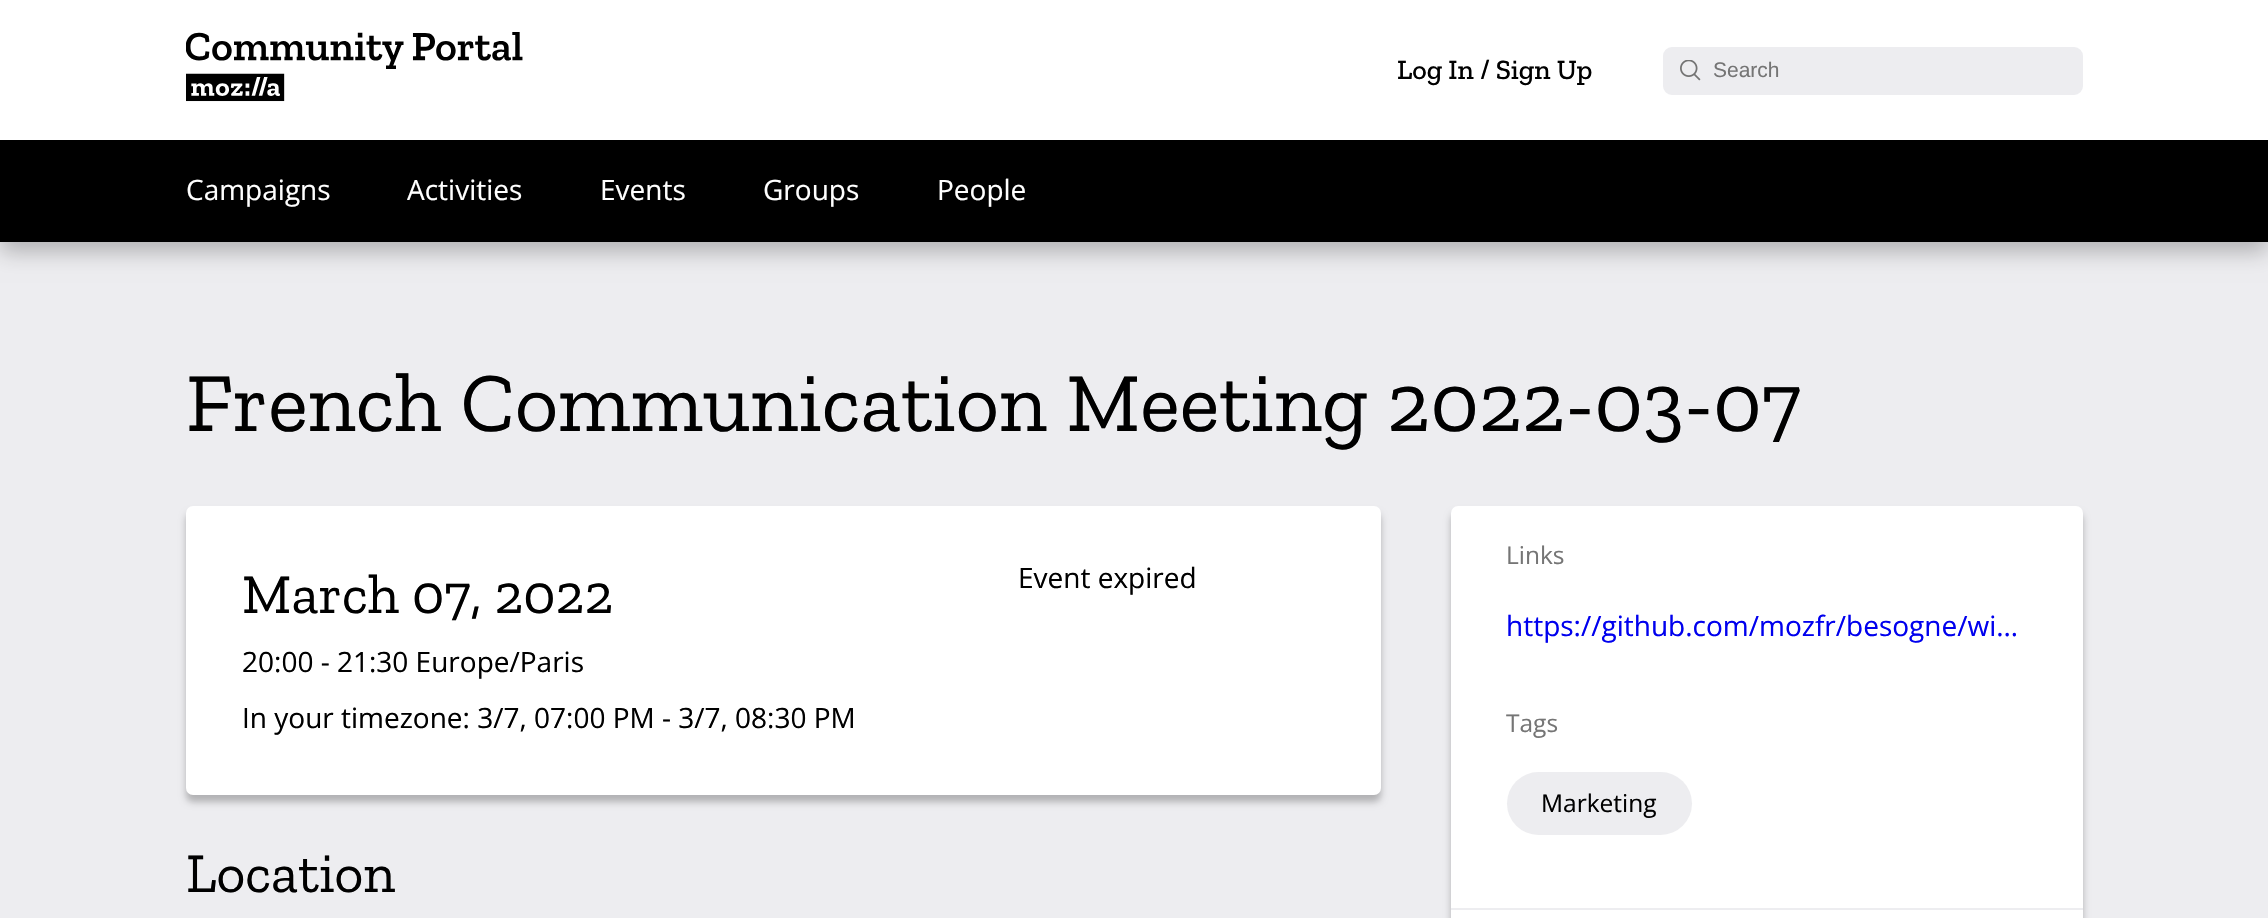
#include "include/core/SkBlurTypes.h"
#include "include/core/SkCanvas.h"
#include "include/core/SkData.h"
#include "include/core/SkFont.h"
#include "include/core/SkFontMgr.h"
#include "include/core/SkImage.h"
#include "include/core/SkMaskFilter.h"
#include "include/core/SkPaint.h"
#include "include/core/SkPathBuilder.h"
#include "include/core/SkTextBlob.h"
#include "include/effects/SkDashPathEffect.h"
#include "include/effects/SkGradientShader.h"
#include "include/utils/SkParsePath.h"

extern sk_sp<SkFontMgr> fontMgr;

void draw(SkCanvas* canvas) {
    SkPaint p;
    p.setAntiAlias(true);
    auto font = [&](const char* family, int weight, float size, bool italic = false) {
        SkFontStyle style(weight, SkFontStyle::kNormal_Width,
            italic ? SkFontStyle::kItalic_Slant : SkFontStyle::kUpright_Slant);
        SkFont result(fontMgr->matchFamilyStyle(family, style), size);
        result.setSubpixel(true);
        return result;
    };
    auto drawPhoto = [&](const char* path, float l, float t, float r, float b) {
        auto image = SkImages::DeferredFromEncodedData(SkData::MakeFromFileName(path));
        canvas->drawImageRect(image, SkRect::MakeLTRB(l, t, r, b), SkSamplingOptions());
    };
    canvas->clear(0xFFEDEDF0);
    p.setColor(0x40000000);
    p.setMaskFilter(SkMaskFilter::MakeBlur(kNormal_SkBlurStyle, 10.5f));
    canvas->drawRect(SkRect::MakeLTRB(0, 11, 2268, 252), p);
    p.setMaskFilter(nullptr);
    p.setColor(0xFFFFFFFF);
    canvas->drawRect(SkRect::MakeLTRB(0, 0, 2268, 140), p);
    drawPhoto("media/1.png", 186, 32, 523, 102);
    auto font1 = font("Zilla Slab", 500, 28);
    p.setColor(0xFF000000);
    canvas->drawString("Log In / Sign Up", 1397, 79, font1, p);
    p.setColor(0xFFEDEDF0);
    canvas->drawRoundRect(SkRect::MakeLTRB(1664, 48, 2082, 94), 8, 8, p);
    p.setStyle(SkPaint::kStroke_Style);
    p.setStrokeWidth(2);
    canvas->drawRoundRect(SkRect::MakeLTRB(1664, 48, 2082, 94), 8, 8, p);
    drawPhoto("media/2.png", 1680, 60, 1701, 81);
    auto font2 = font("Liberation Sans", 400, 21);
    p.setStyle(SkPaint::kFill_Style);
    p.setColor(0xFF757575);
    canvas->drawString("Search", 1713, 77, font2, p);
    p.setColor(0xFF000000);
    canvas->drawRect(SkRect::MakeLTRB(0, 140, 2268, 242), p);
    auto font3 = font("Open Sans", 400, 28);
    p.setColor(0xFFFFFFFF);
    {
        const struct { const char* s; float x, y; } items[] = {
            {"Campaigns", 186, 200},
            {"Activities", 407, 200},
            {"Events", 600, 200},
            {"Groups", 763, 200},
            {"People", 937, 200},
        };
        for (auto [s, x, y] : items) {
            canvas->drawString(s, x, y, font3, p);
        }
    }
    auto font4 = font("Zilla Slab", 400, 84);
    p.setColor(0xFF000000);
    canvas->drawString("French Communication Meeting 2022-03-07", 186, 431, font4, p);
    p.setColor(0x40000000);
    p.setMaskFilter(SkMaskFilter::MakeBlur(kNormal_SkBlurStyle, 3.5f));
    canvas->drawRoundRect(SkRect::MakeLTRB(186, 513, 1381, 802), 7, 7, p);
    p.setMaskFilter(nullptr);
    p.setColor(0xFFFFFFFF);
    canvas->drawRoundRect(SkRect::MakeLTRB(186, 506, 1381, 795), 7, 7, p);
    auto font5 = font("Zilla Slab", 400, 56);
    p.setColor(0xFF000000);
    canvas->drawString("March 07, 2022", 242, 613, font5, p);
    {
        const struct { const char* s; float x, y; } items[] = {
            {"20:00 - 21:30 Europe/Paris", 242, 672},
            {"In your timezone: 3/7, 07:00 PM - 3/7, 08:30 PM", 242, 728},
            {"Event expired", 1018, 588},
        };
        for (auto [s, x, y] : items) {
            canvas->drawString(s, x, y, font3, p);
        }
    }
    canvas->drawString("Location", 186, 892, font5, p);
    p.setColor(0x40000000);
    p.setMaskFilter(SkMaskFilter::MakeBlur(kNormal_SkBlurStyle, 3.5f));
    canvas->drawRoundRect(SkRect::MakeLTRB(1451, 513, 2083, 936), 7, 7, p);
    p.setMaskFilter(nullptr);
    p.setColor(0xFFFFFFFF);
    canvas->drawRoundRect(SkRect::MakeLTRB(1451, 506, 2083, 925), 7, 7, p);
    auto font6 = font("Open Sans", 400, 24.5f);
    p.setColor(0xFF757575);
    canvas->drawString("Links", 1506, 564, font6, p);
    p.setColor(0xFF0000EE);
    canvas->drawString("https://github.com/mozfr/besogne/wi…", 1506, 636, font3, p);
    p.setColor(0xFF757575);
    canvas->drawString("Tags", 1506, 732, font6, p);
    p.setColor(0xFFEDEDF0);
    canvas->drawRoundRect(SkRect::MakeLTRB(1507, 772, 1692, 835), 31.5f, 31.5f, p);
    p.setColor(0xFF000000);
    canvas->drawString("Marketing", 1541, 812, font6, p);
    p.setColor(0xFFEDEDF0);
    canvas->drawRect(SkRect::MakeLTRB(1451, 908, 2083, 910), p);
}
